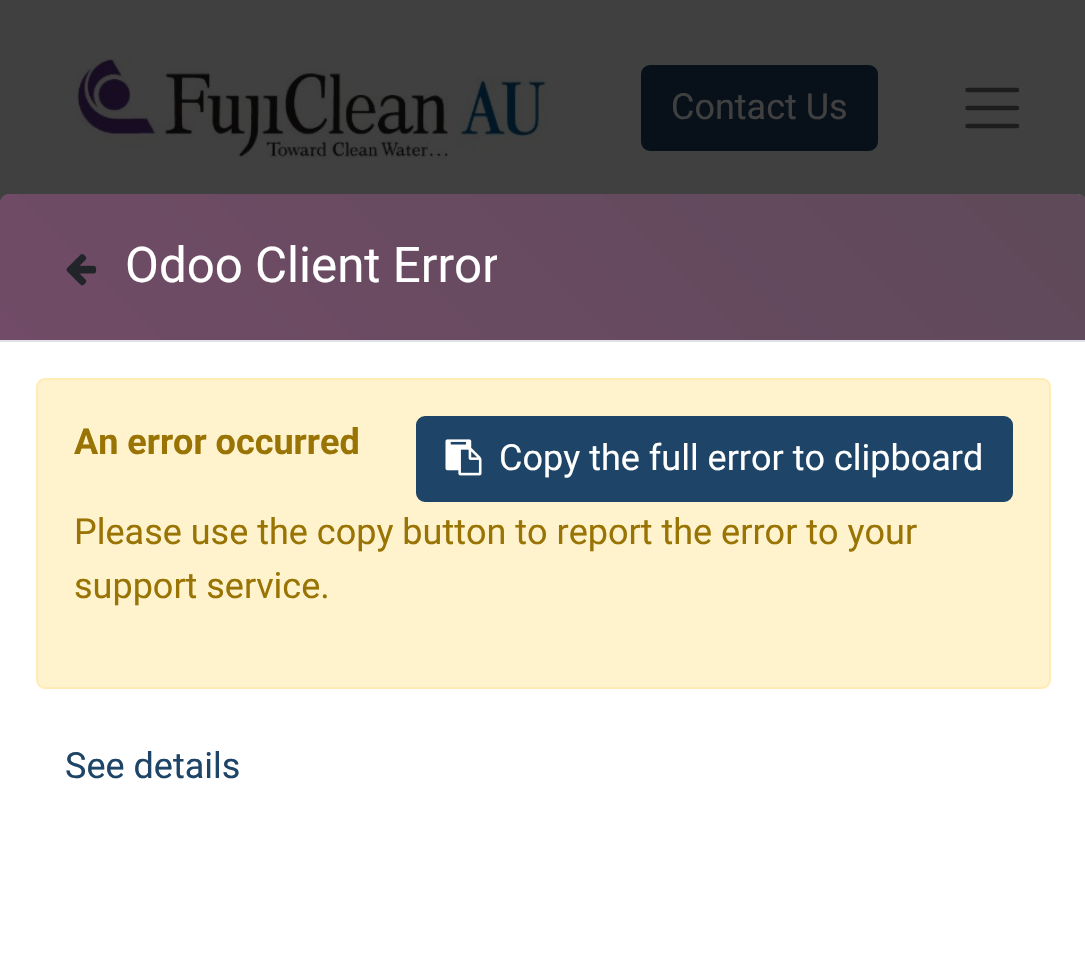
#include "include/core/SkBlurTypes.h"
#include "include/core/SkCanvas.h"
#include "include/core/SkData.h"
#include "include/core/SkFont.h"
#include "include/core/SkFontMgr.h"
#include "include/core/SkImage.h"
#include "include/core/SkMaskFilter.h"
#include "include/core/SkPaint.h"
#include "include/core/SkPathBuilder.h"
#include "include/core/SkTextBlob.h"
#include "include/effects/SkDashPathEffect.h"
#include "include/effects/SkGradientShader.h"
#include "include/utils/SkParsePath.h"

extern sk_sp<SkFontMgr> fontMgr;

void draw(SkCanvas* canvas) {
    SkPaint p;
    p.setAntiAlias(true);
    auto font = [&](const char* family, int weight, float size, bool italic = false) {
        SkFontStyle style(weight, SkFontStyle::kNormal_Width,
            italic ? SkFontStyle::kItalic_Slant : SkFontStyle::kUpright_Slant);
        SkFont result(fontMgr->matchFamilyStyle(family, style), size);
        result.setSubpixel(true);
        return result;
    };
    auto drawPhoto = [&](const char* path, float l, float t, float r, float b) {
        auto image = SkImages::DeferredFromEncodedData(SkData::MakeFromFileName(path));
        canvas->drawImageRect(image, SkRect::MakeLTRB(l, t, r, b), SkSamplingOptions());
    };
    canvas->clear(0xFF404040);
    drawPhoto("media/1.png", 76, 58, 549, 159);
    p.setColor(0xFF08111A);
    canvas->drawRoundRect(SkRect::MakeLTRB(642, 66, 877, 150), 8, 8, p);
    p.setStyle(SkPaint::kStroke_Style);
    p.setStrokeWidth(2);
    canvas->drawRoundRect(SkRect::MakeLTRB(642, 66, 877, 150), 8, 8, p);
    auto font1 = font("Roboto", 400, 36);
    p.setStyle(SkPaint::kFill_Style);
    p.setColor(0xFF404040);
    canvas->drawString("Contact Us", 671, 119, font1, p);
    p.setStyle(SkPaint::kStroke_Style);
    p.setStrokeWidth(4.5f);
    p.setStrokeCap(SkPaint::kRound_Cap);
    p.setColor(0xFF1D1D1D);
    canvas->drawPath(SkPathBuilder().moveTo(967.5f, 90).lineTo(1017, 90).moveTo(967.5f, 108).lineTo(1017, 108).moveTo(967.5f, 126).lineTo(1017, 126).detach(), p);
    p.setStyle(SkPaint::kFill_Style);
    p.setColor(0xFFFFFFFF);
    canvas->drawPath(SkPathBuilder().moveTo(11, 194).lineTo(1076, 194).cubicTo(1082, 194, 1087, 199, 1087, 205).lineTo(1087, 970).lineTo(0, 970).lineTo(0, 205).cubicTo(0, 199, 5, 194, 11, 194).close().detach(), p);
    {
        const SkColor colors[] = {0xFF714B67, 0xFF5E4A59};
        const float stops[] = {0, 1};
        const SkPoint ends[] = {{235, 575}, {852, -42}};
        p.setShader(SkGradientShader::MakeLinear(ends, colors, stops, 2, SkTileMode::kClamp));
        p.setAlpha(255);
    }
    canvas->drawPath(SkPathBuilder().moveTo(9, 194).lineTo(1078, 194).cubicTo(1083, 194, 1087, 198, 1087, 203).lineTo(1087, 340).lineTo(0, 340).lineTo(0, 203).cubicTo(0, 198, 4, 194, 9, 194).close().detach(), p);
    p.setShader(nullptr);
    p.setColor(0xFFDEE2E6);
    canvas->drawRect(SkRect::MakeLTRB(0, 340, 1085, 342), p);
    drawPhoto("media/2.png", 66, 254, 97, 286);
    canvas->save();
    canvas->clipRect(SkRect::MakeLTRB(126, 230, 497, 304));
    auto font2 = font("Roboto", 400, 49.25f);
    p.setColor(0xFFFFFFFF);
    canvas->drawString("Odoo Client Error", 125, 282, font2, p);
    canvas->restore();
    p.setColor(0xFFFFF3CD);
    canvas->drawRoundRect(SkRect::MakeLTRB(37, 379, 1050, 688), 8, 8, p);
    p.setStyle(SkPaint::kStroke_Style);
    p.setStrokeWidth(2);
    p.setStrokeCap(SkPaint::kButt_Cap);
    p.setColor(0xFFFFECB5);
    canvas->drawRoundRect(SkRect::MakeLTRB(37, 379, 1050, 688), 8, 8, p);
    auto font3 = font("Roboto", 700, 36);
    p.setStyle(SkPaint::kFill_Style);
    p.setColor(0xFF997404);
    canvas->drawString("An error occurred", 74, 454, font3, p);
    p.setColor(0xFF1E4467);
    canvas->drawRoundRect(SkRect::MakeLTRB(417, 417, 1012, 501), 8, 8, p);
    p.setStyle(SkPaint::kStroke_Style);
    canvas->drawRoundRect(SkRect::MakeLTRB(417, 417, 1012, 501), 8, 8, p);
    drawPhoto("media/3.png", 445, 439, 482, 476);
    p.setStyle(SkPaint::kFill_Style);
    p.setColor(0xFFFFFFFF);
    canvas->drawString("Copy the full error to clipboard", 499, 470, font1, p);
    p.setColor(0xFF997404);
    canvas->drawString("Please use the copy button to report the error to your", 74, 544, font1, p);
    canvas->drawString("support service.", 74, 598, font1, p);
    p.setColor(0xFF1E4467);
    canvas->drawString("See details", 65, 778, font1, p);
}
